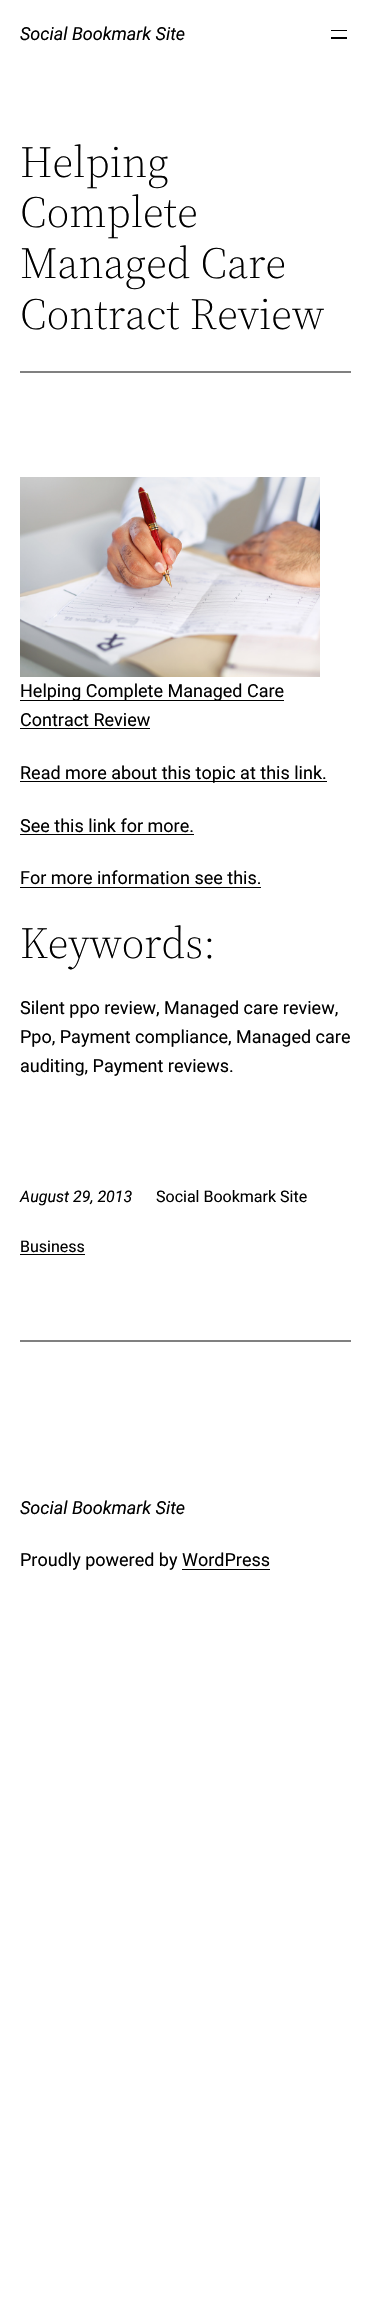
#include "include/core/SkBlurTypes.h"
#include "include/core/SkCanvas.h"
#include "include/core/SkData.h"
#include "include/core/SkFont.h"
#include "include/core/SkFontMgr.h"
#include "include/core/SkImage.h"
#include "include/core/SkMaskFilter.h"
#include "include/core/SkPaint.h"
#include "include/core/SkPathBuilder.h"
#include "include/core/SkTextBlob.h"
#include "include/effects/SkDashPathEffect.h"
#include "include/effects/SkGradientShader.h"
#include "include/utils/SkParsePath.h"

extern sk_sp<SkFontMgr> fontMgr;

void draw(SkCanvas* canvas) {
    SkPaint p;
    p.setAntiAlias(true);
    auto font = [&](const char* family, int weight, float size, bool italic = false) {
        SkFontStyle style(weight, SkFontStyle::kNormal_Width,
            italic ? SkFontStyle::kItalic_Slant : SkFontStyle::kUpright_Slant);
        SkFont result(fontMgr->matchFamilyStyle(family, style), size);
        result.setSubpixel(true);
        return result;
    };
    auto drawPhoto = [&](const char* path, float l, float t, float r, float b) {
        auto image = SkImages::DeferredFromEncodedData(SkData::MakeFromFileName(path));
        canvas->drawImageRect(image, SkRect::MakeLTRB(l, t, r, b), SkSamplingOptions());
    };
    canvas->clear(0xFFFFFFFF);
    auto font1 = font("Roboto", 400, 18, true);
    p.setColor(0xFF000000);
    canvas->drawString("Social Bookmark Site", 20, 40, font1, p);
    canvas->drawRect(SkRect::MakeLTRB(331, 30, 347, 31), p);
    canvas->drawRect(SkRect::MakeLTRB(331, 37, 347, 39), p);
    auto font2 = font("Source Serif 4", 300, 44);
    {
        const struct { const char* s; float x, y; } items[] = {
            {"Helping", 20, 177},
            {"Complete", 20, 227},
            {"Managed Care", 20, 278},
            {"Contract Review", 20, 329},
        };
        for (auto [s, x, y] : items) {
            canvas->drawString(s, x, y, font2, p);
        }
    }
    p.setColor(0xFF808080);
    canvas->drawRect(SkRect::MakeLTRB(20, 371, 351, 373), p);
    drawPhoto("media/1.png", 20, 477, 320, 677);
    p.setColor(0xFF000000);
    canvas->drawRect(SkRect::MakeLTRB(20, 700, 284, 701), p);
    auto font3 = font("Roboto", 400, 18);
    canvas->drawString("Helping Complete Managed Care", 20, 697, font3, p);
    canvas->drawString("Contract Review", 20, 726, font3, p);
    canvas->drawRect(SkRect::MakeLTRB(20, 728, 150, 729), p);
    canvas->drawRect(SkRect::MakeLTRB(20, 781, 327, 782), p);
    canvas->drawString("Read more about this topic at this link.", 20, 779, font3, p);
    canvas->drawString("See this link for more.", 20, 832, font3, p);
    canvas->drawRect(SkRect::MakeLTRB(20, 834, 194, 835), p);
    canvas->drawString("For more information see this.", 20, 884, font3, p);
    canvas->drawRect(SkRect::MakeLTRB(20, 887, 261, 888), p);
    canvas->drawString("Keywords:", 20, 958, font2, p);
    {
        const struct { const char* s; float x, y; } items[] = {
            {"Silent ppo review, Managed care review,", 20, 1014},
            {"Ppo, Payment compliance, Managed care", 20, 1043},
            {"auditing, Payment reviews.", 20, 1072},
        };
        for (auto [s, x, y] : items) {
            canvas->drawString(s, x, y, font3, p);
        }
    }
    auto font4 = font("Roboto", 400, 16, true);
    canvas->drawString("August 29, 2013", 20, 1202, font4, p);
    auto font5 = font("Roboto", 400, 16);
    canvas->drawString("Social Bookmark Site", 156, 1202, font5, p);
    canvas->drawString("Business", 20, 1252, font5, p);
    canvas->drawRect(SkRect::MakeLTRB(20, 1254, 85, 1255), p);
    p.setColor(0xFF808080);
    canvas->drawRect(SkRect::MakeLTRB(20, 1340, 351, 1342), p);
    p.setColor(0xFF000000);
    canvas->drawString("Social Bookmark Site", 20, 1514, font1, p);
    canvas->drawString("Proudly powered by WordPress", 20, 1566, font3, p);
    canvas->drawRect(SkRect::MakeLTRB(182, 1569, 270, 1570), p);
}
